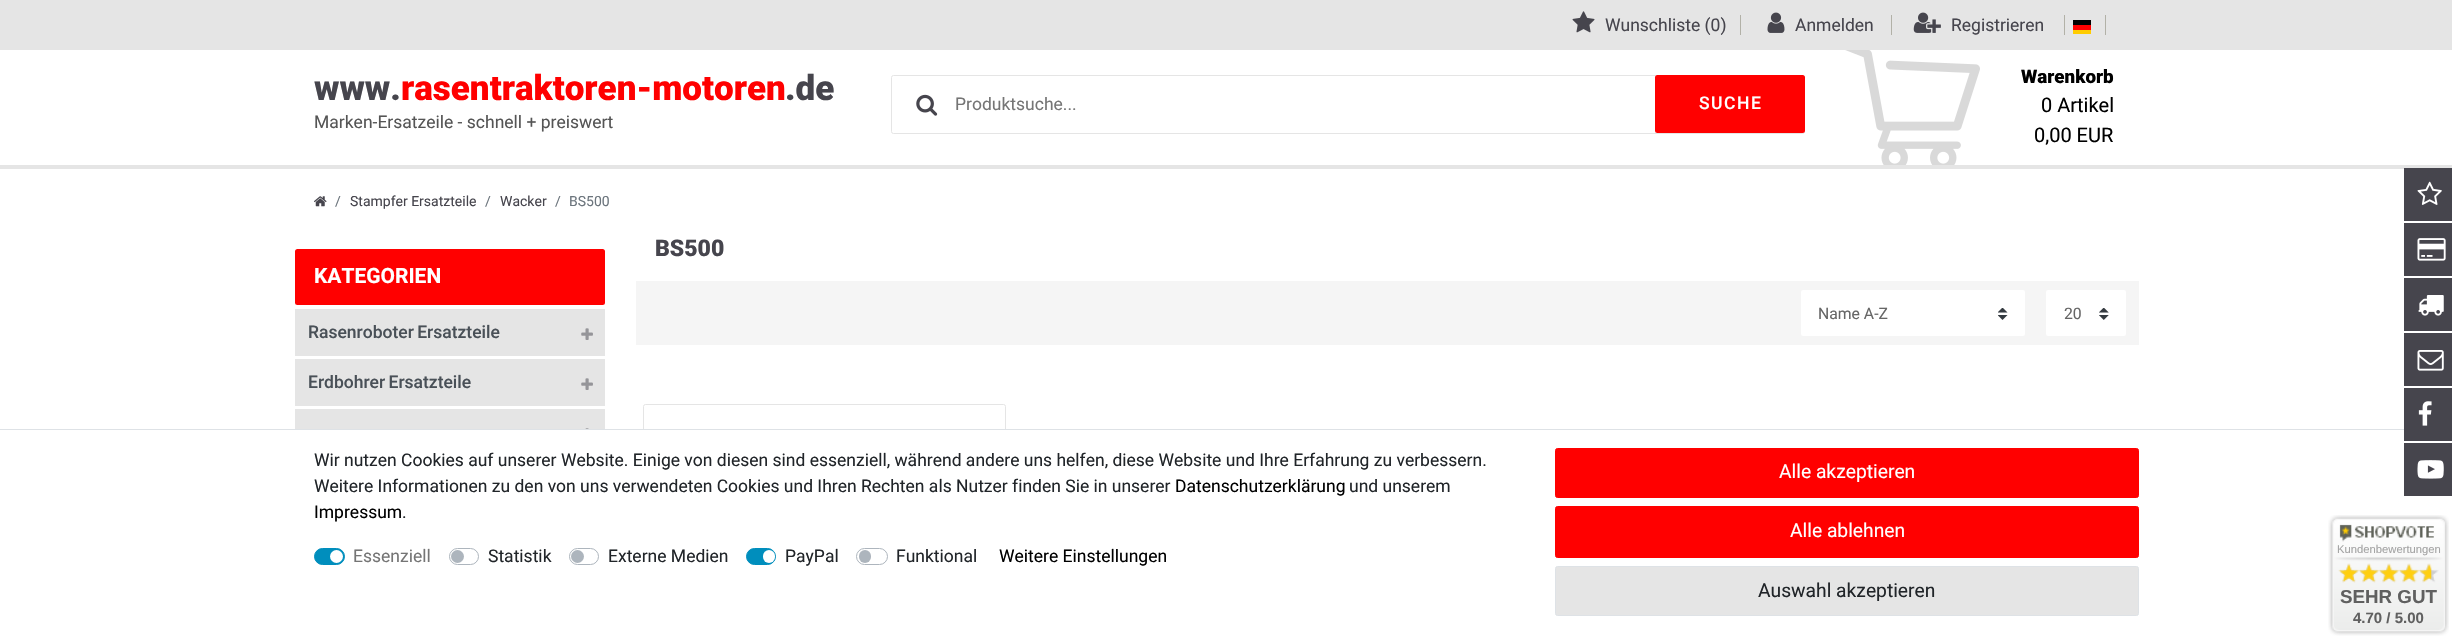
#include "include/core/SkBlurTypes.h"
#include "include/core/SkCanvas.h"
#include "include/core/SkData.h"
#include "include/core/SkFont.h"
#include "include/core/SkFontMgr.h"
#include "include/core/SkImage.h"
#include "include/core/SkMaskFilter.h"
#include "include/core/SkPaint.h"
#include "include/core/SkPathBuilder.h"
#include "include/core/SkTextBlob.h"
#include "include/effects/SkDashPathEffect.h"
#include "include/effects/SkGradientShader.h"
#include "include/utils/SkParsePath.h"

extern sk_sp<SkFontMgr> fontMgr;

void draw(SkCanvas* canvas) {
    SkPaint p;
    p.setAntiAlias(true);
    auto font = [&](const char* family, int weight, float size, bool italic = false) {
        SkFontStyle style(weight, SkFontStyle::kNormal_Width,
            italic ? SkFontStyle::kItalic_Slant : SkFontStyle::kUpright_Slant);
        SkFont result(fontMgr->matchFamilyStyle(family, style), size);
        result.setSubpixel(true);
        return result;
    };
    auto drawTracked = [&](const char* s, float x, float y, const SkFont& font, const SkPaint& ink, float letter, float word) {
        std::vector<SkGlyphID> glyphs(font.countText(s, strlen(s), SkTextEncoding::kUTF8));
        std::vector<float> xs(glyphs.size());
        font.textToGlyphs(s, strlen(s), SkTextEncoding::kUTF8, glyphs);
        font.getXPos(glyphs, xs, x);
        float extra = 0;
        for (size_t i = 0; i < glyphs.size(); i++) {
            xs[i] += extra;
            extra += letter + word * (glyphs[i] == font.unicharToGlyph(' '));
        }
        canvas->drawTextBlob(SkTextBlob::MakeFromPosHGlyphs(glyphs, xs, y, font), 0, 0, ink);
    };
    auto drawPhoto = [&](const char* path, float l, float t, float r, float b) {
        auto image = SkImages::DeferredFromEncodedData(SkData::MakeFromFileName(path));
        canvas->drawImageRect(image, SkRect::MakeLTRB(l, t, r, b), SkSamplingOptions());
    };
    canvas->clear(0xFFFFFFFF);
    p.setColor(0xFFE5E5E5);
    canvas->drawRect(SkRect::MakeLTRB(0, 0, 2452, 50), p);
    drawPhoto("media/1.png", 1572, 11, 1595, 33);
    auto font1 = font("Roboto", 400, 17.5f);
    p.setColor(0xFF46454D);
    canvas->drawString("Wunschliste (0)", 1605, 31, font1, p);
    p.setColor(0xFFB2B1A7);
    canvas->drawRect(SkRect::MakeLTRB(1740, 15, 1741, 35), p);
    drawPhoto("media/2.png", 1767, 12, 1785, 33);
    p.setColor(0xFF46454D);
    canvas->drawString("Anmelden", 1795, 31, font1, p);
    p.setColor(0xFFB2B1A7);
    canvas->drawRect(SkRect::MakeLTRB(1891, 15, 1892, 35), p);
    drawPhoto("media/3.png", 1913, 12, 1941, 33);
    p.setColor(0xFF46454D);
    canvas->drawString("Registrieren", 1951, 31, font1, p);
    {
        const struct { float l, t, r, b; SkColor color; } items[] = {
            {2064, 15, 2065, 35, 0xFFB2B1A7},
            {2073, 30, 2091, 34, 0xFFFFCC00},
            {2073, 20, 2091, 25, 0xFF000000},
            {2073, 25, 2091, 30, 0xFFFF0000},
            {2105, 15, 2106, 35, 0xFFB2B1A7},
        };
        for (auto [l, t, r, b, color] : items) {
            p.setColor(color);
            canvas->drawRect(SkRect::MakeLTRB(l, t, r, b), p);
        }
    }
    auto font2 = font("Roboto", 900, 35);
    p.setColor(0xFF46454D);
    canvas->drawString("www.", 314, 100, font2, p);
    p.setColor(0xFFFF0000);
    canvas->drawString("rasentraktoren-motoren", 401, 100, font2, p);
    p.setColor(0xFF46454D);
    canvas->drawString(".de", 785, 100, font2, p);
    p.setColor(0xFF555555);
    canvas->drawString("Marken-Ersatzeile - schnell + preiswert", 314, 128, font1, p);
    p.setStyle(SkPaint::kStroke_Style);
    p.setStrokeWidth(1);
    p.setColor(0xFFE5E5E5);
    canvas->drawRoundRect(SkRect::MakeLTRB(891.5f, 75.5f, 1804.5f, 133.5f), 2, 2, p);
    drawPhoto("media/4.png", 916, 94, 938, 116);
    p.setStyle(SkPaint::kFill_Style);
    p.setColor(0xFF757575);
    canvas->drawString("Produktsuche...", 955, 110, font1, p);
    p.setColor(0xFFFF0000);
    canvas->drawRoundRect(SkRect::MakeLTRB(1655, 75, 1805, 133), 2.5f, 2.5f, p);
    auto font3 = font("Roboto", 500, 17.5f);
    p.setColor(0xFFFFFFFF);
    drawTracked("SUCHE", 1699, 109, font3, p, 1.5f, 0);
    drawPhoto("media/5.png", 1845, 50, 1980, 165);
    auto font4 = font("Roboto", 900, 18.75f);
    p.setColor(0xFF000000);
    canvas->drawString("Warenkorb", 2021, 83, font4, p);
    auto font5 = font("Roboto", 400, 20);
    canvas->drawString("0 Artikel", 2041, 112, font5, p);
    canvas->drawString("0,00 EUR", 2034, 142, font5, p);
    p.setColor(0xFFE5E5E5);
    canvas->drawRect(SkRect::MakeLTRB(0, 165, 2452, 169), p);
    drawPhoto("media/6.png", 314, 196, 327, 207);
    auto font6 = font("Roboto", 400, 14);
    p.setColor(0xFF6C757D);
    canvas->drawString("/", 335, 206, font6, p);
    p.setColor(0xFF46454D);
    canvas->drawString("Stampfer Ersatzteile", 350, 206, font6, p);
    p.setColor(0xFF6C757D);
    canvas->drawString("/", 485, 206, font6, p);
    p.setColor(0xFF46454D);
    canvas->drawString("Wacker", 500, 206, font6, p);
    p.setColor(0xFF6C757D);
    canvas->drawString("/", 555, 206, font6, p);
    canvas->drawString("BS500", 569, 206, font6, p);
    p.setColor(0xFF46454D);
    canvas->drawRect(SkRect::MakeLTRB(2404, 168, 2452, 221), p);
    drawPhoto("media/7.png", 2417, 181, 2442, 205);
    canvas->drawRect(SkRect::MakeLTRB(2404, 223, 2452, 276), p);
    drawPhoto("media/8.png", 2417, 238, 2446, 261);
    canvas->drawRect(SkRect::MakeLTRB(2404, 278, 2452, 331), p);
    drawPhoto("media/9.png", 2418, 295, 2444, 316);
    canvas->drawRect(SkRect::MakeLTRB(2404, 333, 2452, 386), p);
    drawPhoto("media/10.png", 2417, 350, 2444, 371);
    canvas->drawRect(SkRect::MakeLTRB(2404, 388, 2452, 441), p);
    drawPhoto("media/11.png", 2418, 401, 2432, 426);
    canvas->drawRect(SkRect::MakeLTRB(2404, 443, 2452, 496), p);
    drawPhoto("media/12.png", 2417, 460, 2444, 479);
    p.setColor(0xFFFF0000);
    canvas->drawRoundRect(SkRect::MakeLTRB(295, 249, 605, 305), 2.5f, 2.5f, p);
    auto font7 = font("Roboto", 700, 21);
    p.setColor(0xFFFFFFFF);
    canvas->drawString("KATEGORIEN", 314, 283, font7, p);
    p.setColor(0xFFE5E5E5);
    canvas->drawRect(SkRect::MakeLTRB(295, 309, 605, 356), p);
    p.setColor(0xFF495057);
    drawTracked("Rasenroboter Ersatzteile", 308, 338, font3, p, 0, -1);
    drawPhoto("media/13.png", 581, 328, 593, 340);
    p.setColor(0xFFE5E5E5);
    canvas->drawRect(SkRect::MakeLTRB(295, 359, 605, 406), p);
    p.setColor(0xFF495057);
    drawTracked("Erdbohrer Ersatzteile", 308, 388, font3, p, 0, -1);
    drawPhoto("media/13.png", 581, 378, 593, 390);
    p.setColor(0xFFE5E5E5);
    canvas->drawRect(SkRect::MakeLTRB(295, 409, 605, 429), p);
    drawPhoto("media/14.png", 585, 428, 589, 429);
    auto font8 = font("Roboto", 900, 23);
    p.setColor(0xFF46454D);
    canvas->drawString("BS500", 655, 256, font8, p);
    p.setColor(0xFFF5F5F5);
    canvas->drawRect(SkRect::MakeLTRB(636, 281, 2139, 345), p);
    p.setColor(0xFFFFFFFF);
    canvas->drawRoundRect(SkRect::MakeLTRB(1801, 290, 2025, 336), 2, 2, p);
    drawPhoto("media/15.png", 1998, 308, 2008, 320);
    auto font9 = font("Roboto", 400, 15.75f);
    p.setColor(0xFF666666);
    canvas->drawString("Name A-Z", 1818, 319, font9, p);
    p.setColor(0xFFFFFFFF);
    canvas->drawRoundRect(SkRect::MakeLTRB(2046, 290, 2126, 336), 2, 2, p);
    drawPhoto("media/16.png", 2099, 308, 2109, 320);
    p.setColor(0xFF666666);
    canvas->drawString("20", 2064, 319, font9, p);
    p.setStyle(SkPaint::kStroke_Style);
    p.setColor(0xFFE5E5E5);
    canvas->drawRoundRect(SkRect::MakeLTRB(643.5f, 404.5f, 1005.5f, 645.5f), 2, 2, p);
    p.setStyle(SkPaint::kFill_Style);
    p.setColor(0xFFFFFFFF);
    canvas->drawRect(SkRect::MakeLTRB(643, 430, 1006, 642), p);
    p.setColor(0xFFDEE2E6);
    canvas->drawRect(SkRect::MakeLTRB(0, 429, 2404, 430), p);
    p.setColor(0xFF212529);
    canvas->drawString("Wir nutzen Cookies auf unserer Website. Einige von diesen sind essenziell, während andere uns helfen, diese Website und Ihre Erfahrung zu verbessern.", 314, 466, font1, p);
    canvas->drawString("Weitere Informationen zu den von uns verwendeten Cookies und Ihren Rechten als Nutzer finden Sie in unserer", 314, 492, font1, p);
    p.setColor(0xFF000000);
    canvas->drawString("Datenschutzerklärung", 1175, 492, font1, p);
    p.setColor(0xFF212529);
    canvas->drawString("und unserem", 1349, 492, font1, p);
    p.setColor(0xFF000000);
    canvas->drawString("Impressum", 314, 518, font1, p);
    p.setColor(0xFF212529);
    canvas->drawString(".", 402, 518, font1, p);
    p.setColor(0xFF008EBD);
    canvas->drawRoundRect(SkRect::MakeLTRB(314.5f, 548.5f, 344.5f, 564.5f), 8, 8, p);
    p.setStyle(SkPaint::kStroke_Style);
    canvas->drawRoundRect(SkRect::MakeLTRB(314.5f, 548.5f, 344.5f, 564.5f), 8, 8, p);
    p.setStyle(SkPaint::kFill_Style);
    p.setColor(0xFF757575);
    canvas->drawString("Essenziell", 353, 562, font1, p);
    p.setColor(0xFFFFFFFF);
    canvas->drawCircle(336.5f, 556.5f, 6.5f, p);
    p.setStyle(SkPaint::kStroke_Style);
    p.setColor(0xFFADB5BD);
    canvas->drawRoundRect(SkRect::MakeLTRB(449.5f, 548.5f, 478.5f, 564.5f), 8, 8, p);
    p.setStyle(SkPaint::kFill_Style);
    p.setColor(0xFF212529);
    canvas->drawString("Statistik", 488, 562, font1, p);
    p.setColor(0xFFADB5BD);
    canvas->drawCircle(457.5f, 556.5f, 6.5f, p);
    p.setStyle(SkPaint::kStroke_Style);
    canvas->drawRoundRect(SkRect::MakeLTRB(569.5f, 548.5f, 598.5f, 564.5f), 8, 8, p);
    p.setStyle(SkPaint::kFill_Style);
    p.setColor(0xFF212529);
    canvas->drawString("Externe Medien", 608, 562, font1, p);
    p.setColor(0xFFADB5BD);
    canvas->drawCircle(577.5f, 556.5f, 6.5f, p);
    p.setColor(0xFF008EBD);
    canvas->drawRoundRect(SkRect::MakeLTRB(746.5f, 548.5f, 775.5f, 564.5f), 8, 8, p);
    p.setStyle(SkPaint::kStroke_Style);
    canvas->drawRoundRect(SkRect::MakeLTRB(746.5f, 548.5f, 775.5f, 564.5f), 8, 8, p);
    p.setStyle(SkPaint::kFill_Style);
    p.setColor(0xFF212529);
    canvas->drawString("PayPal", 785, 562, font1, p);
    p.setColor(0xFFFFFFFF);
    canvas->drawRoundRect(SkRect::MakeLTRB(763, 550, 775, 563), 6, 6, p);
    p.setStyle(SkPaint::kStroke_Style);
    p.setColor(0xFFADB5BD);
    canvas->drawRoundRect(SkRect::MakeLTRB(856.5f, 548.5f, 887.5f, 564.5f), 8, 8, p);
    p.setStyle(SkPaint::kFill_Style);
    p.setColor(0xFF212529);
    canvas->drawString("Funktional", 896, 562, font1, p);
    p.setColor(0xFFADB5BD);
    canvas->drawRoundRect(SkRect::MakeLTRB(859, 550, 871, 563), 6, 6, p);
    p.setColor(0xFF000000);
    canvas->drawString("Weitere Einstellungen", 999, 562, font1, p);
    p.setColor(0xFFFF0000);
    canvas->drawRoundRect(SkRect::MakeLTRB(1555.5f, 448.5f, 2138.5f, 497.5f), 2, 2, p);
    p.setStyle(SkPaint::kStroke_Style);
    canvas->drawRoundRect(SkRect::MakeLTRB(1555.5f, 448.5f, 2138.5f, 497.5f), 2, 2, p);
    auto font10 = font("Roboto", 400, 19.25f);
    p.setStyle(SkPaint::kFill_Style);
    p.setColor(0xFFFFFFFF);
    canvas->drawString("Alle akzeptieren", 1779, 478, font10, p);
    p.setColor(0xFFFF0000);
    canvas->drawRoundRect(SkRect::MakeLTRB(1555.5f, 506.5f, 2138.5f, 557.5f), 2, 2, p);
    p.setStyle(SkPaint::kStroke_Style);
    canvas->drawRoundRect(SkRect::MakeLTRB(1555.5f, 506.5f, 2138.5f, 557.5f), 2, 2, p);
    p.setStyle(SkPaint::kFill_Style);
    p.setColor(0xFFFFFFFF);
    canvas->drawString("Alle ablehnen", 1790, 537, font10, p);
    p.setColor(0xFFE5E5E5);
    canvas->drawRoundRect(SkRect::MakeLTRB(1555.5f, 566.5f, 2138.5f, 615.5f), 2, 2, p);
    p.setStyle(SkPaint::kStroke_Style);
    p.setColor(0xFFDEE2E6);
    canvas->drawRoundRect(SkRect::MakeLTRB(1555.5f, 566.5f, 2138.5f, 615.5f), 2, 2, p);
    p.setStyle(SkPaint::kFill_Style);
    p.setColor(0xFF212529);
    canvas->drawString("Auswahl akzeptieren", 1758, 597, font10, p);
    drawPhoto("media/17.png", 2328, 515, 2449, 636);
    auto font11 = font("Liberation Sans", 400, 11.25f);
    p.setColor(0xFFA4A4A4);
    canvas->drawString("Kundenbewertungen", 2337, 553, font11, p);
    drawPhoto("media/18.png", 2338, 563, 2432, 583);
    auto font12 = font("Liberation Sans", 700, 18.75f);
    p.setColor(0xFF606060);
    canvas->drawString("SEHR GUT", 2340, 603, font12, p);
    auto font13 = font("Liberation Sans", 700, 15);
    canvas->drawString("4.70 / 5.00", 2353, 623, font13, p);
}
